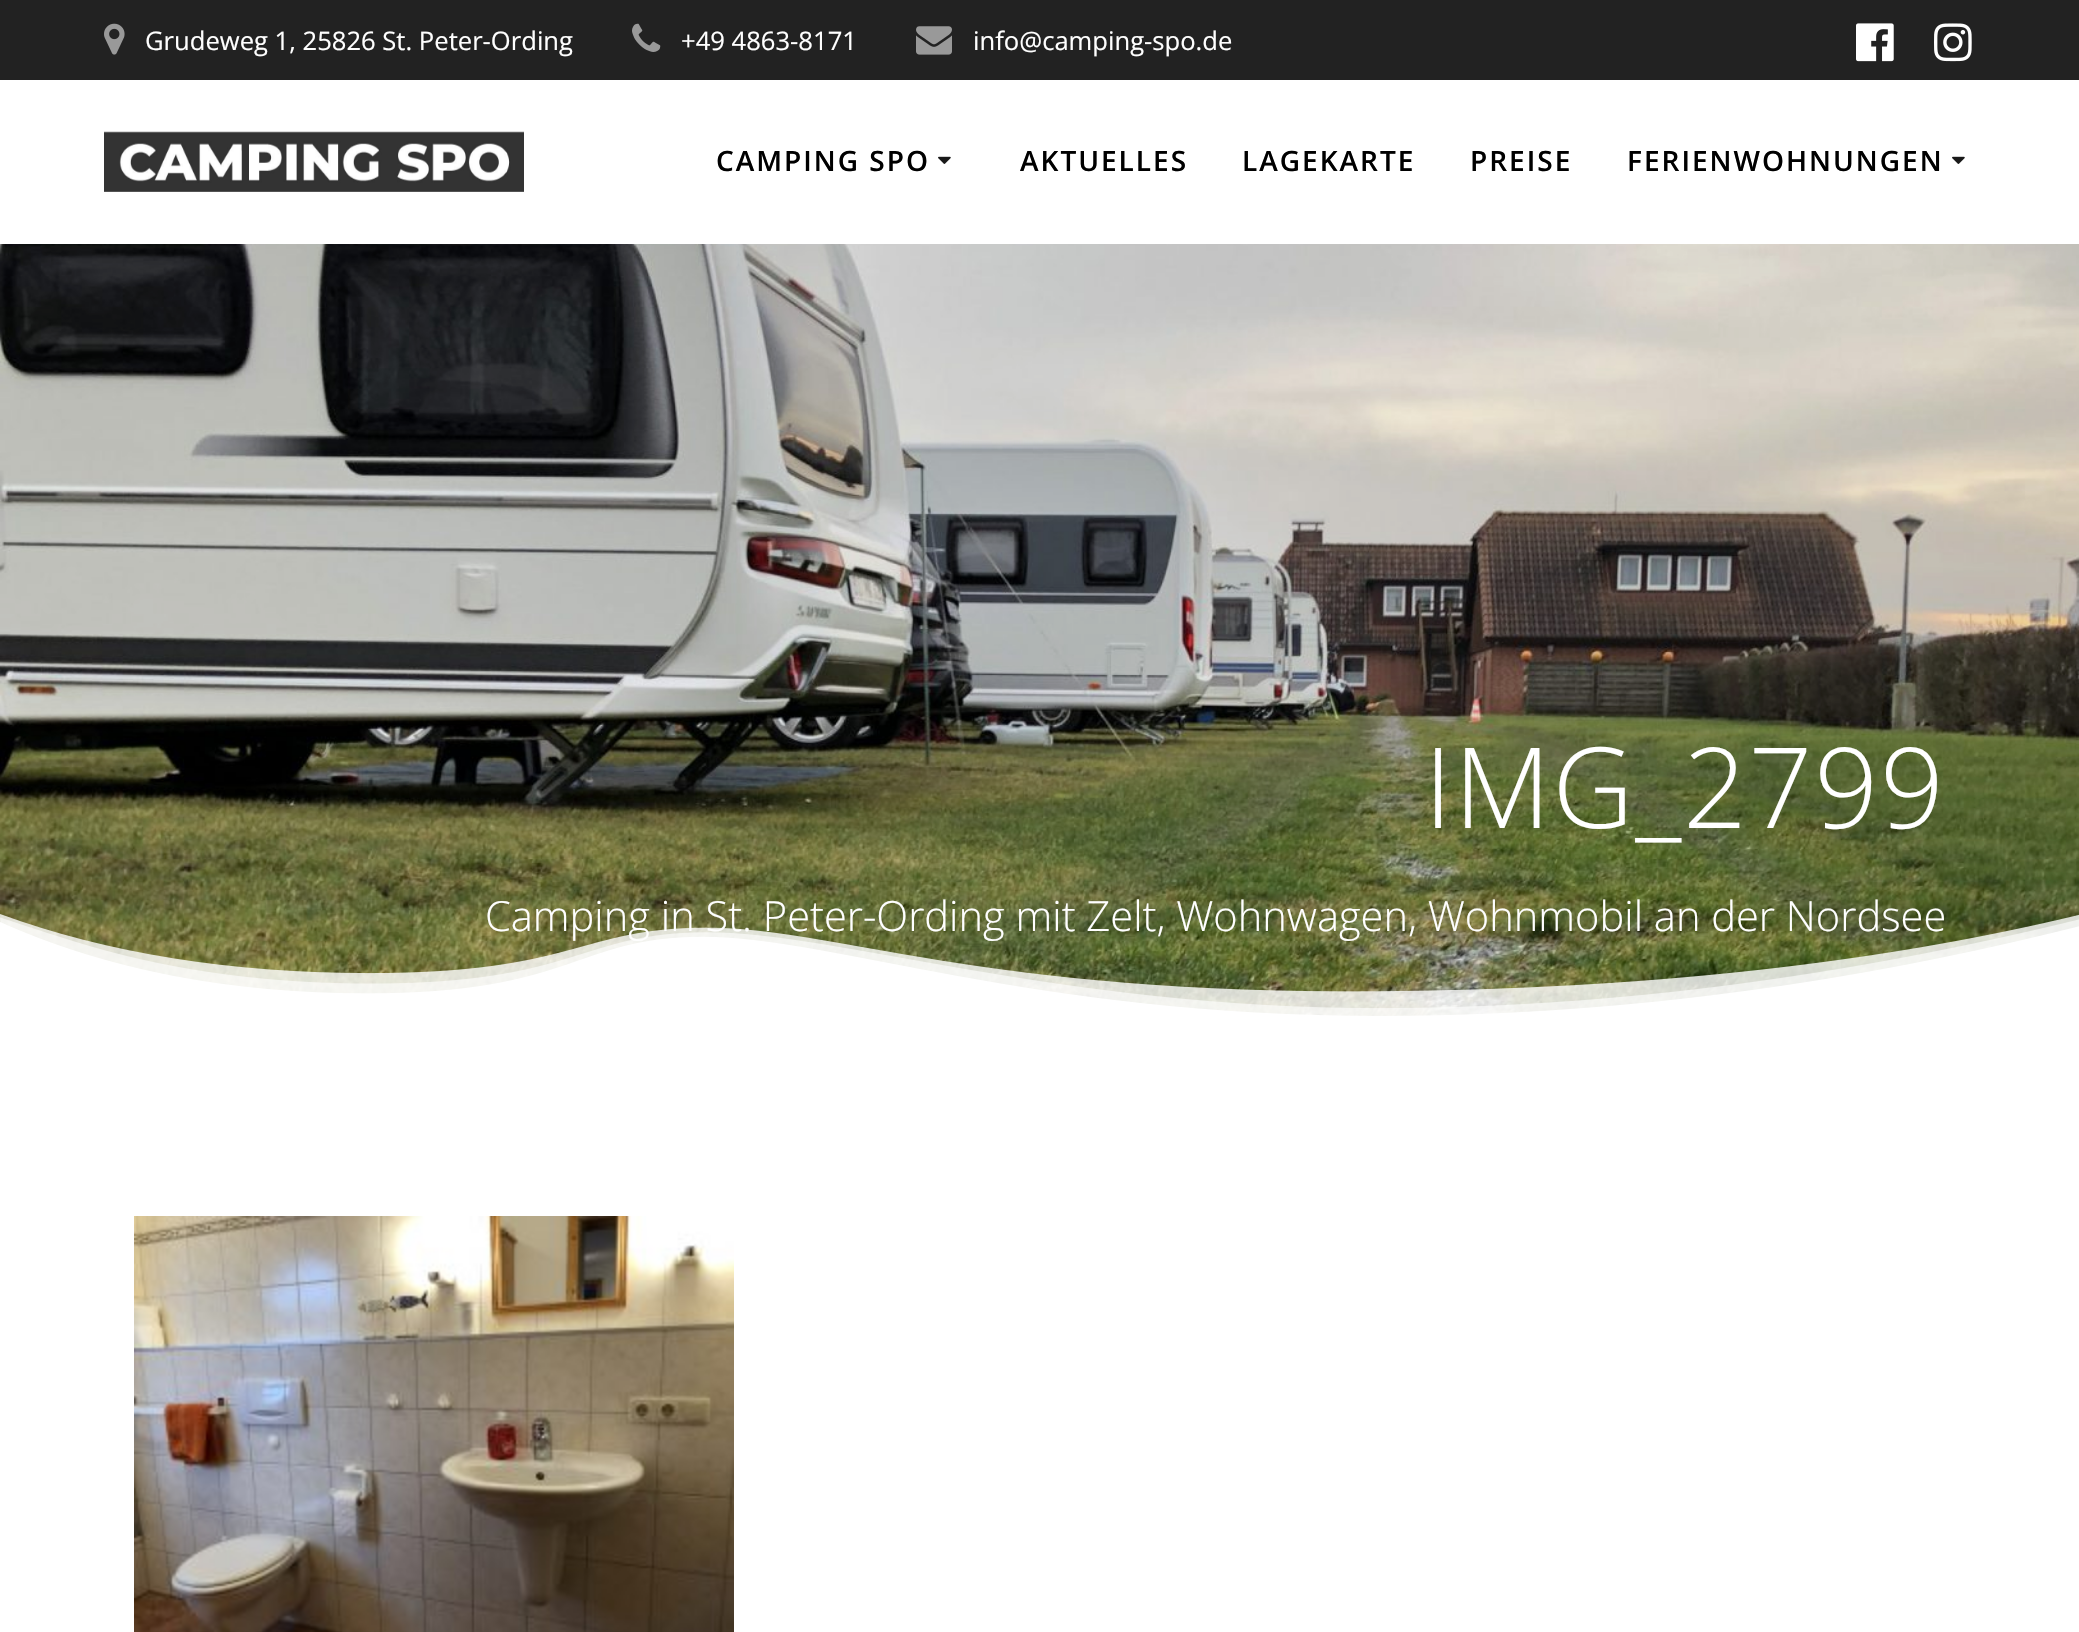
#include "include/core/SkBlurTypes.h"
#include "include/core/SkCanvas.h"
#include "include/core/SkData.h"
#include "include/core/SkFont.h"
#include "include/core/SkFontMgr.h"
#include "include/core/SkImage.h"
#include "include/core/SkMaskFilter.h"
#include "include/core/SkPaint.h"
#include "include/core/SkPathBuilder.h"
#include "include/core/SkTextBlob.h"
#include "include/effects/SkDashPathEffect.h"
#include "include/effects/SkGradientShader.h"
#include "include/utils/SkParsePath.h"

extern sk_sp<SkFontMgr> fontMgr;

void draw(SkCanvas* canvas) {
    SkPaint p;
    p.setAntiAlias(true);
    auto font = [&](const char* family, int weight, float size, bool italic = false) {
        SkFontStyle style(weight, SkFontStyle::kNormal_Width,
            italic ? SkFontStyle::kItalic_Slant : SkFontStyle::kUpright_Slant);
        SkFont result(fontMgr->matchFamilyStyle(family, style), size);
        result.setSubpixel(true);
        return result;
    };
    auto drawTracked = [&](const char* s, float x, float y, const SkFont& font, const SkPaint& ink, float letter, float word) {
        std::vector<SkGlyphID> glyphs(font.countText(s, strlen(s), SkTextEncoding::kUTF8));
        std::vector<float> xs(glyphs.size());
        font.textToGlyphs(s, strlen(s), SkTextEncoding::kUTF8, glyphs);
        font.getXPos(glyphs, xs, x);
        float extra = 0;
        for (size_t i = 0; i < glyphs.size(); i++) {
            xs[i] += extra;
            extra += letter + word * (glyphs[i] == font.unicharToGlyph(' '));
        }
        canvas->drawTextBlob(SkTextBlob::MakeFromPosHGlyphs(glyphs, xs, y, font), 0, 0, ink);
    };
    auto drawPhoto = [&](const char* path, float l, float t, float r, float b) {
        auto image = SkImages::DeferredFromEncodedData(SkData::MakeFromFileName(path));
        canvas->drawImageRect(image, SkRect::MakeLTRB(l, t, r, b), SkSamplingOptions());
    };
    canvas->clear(0xFFFFFFFF);
    p.setColor(0xFF222222);
    canvas->drawRect(SkRect::MakeLTRB(0, 0, 2079, 80), p);
    drawPhoto("media/1.png", 104, 23, 125, 55);
    auto font1 = font("Open Sans", 400, 25.6f);
    p.setColor(0xFFFFFFFF);
    canvas->drawString("Grudeweg 1, 25826 St. Peter-Ording", 145, 50, font1, p);
    drawPhoto("media/2.png", 632, 23, 661, 52);
    canvas->drawString("+49 4863-8171", 681, 50, font1, p);
    drawPhoto("media/3.png", 916, 26, 952, 55);
    canvas->drawString("info@camping-spo.de", 973, 50, font1, p);
    drawPhoto("media/4.png", 1856, 23, 1894, 62);
    drawPhoto("media/5.png", 1934, 23, 1972, 62);
    drawPhoto("media/6.png", 104, 131, 524, 192);
    auto font2 = font("Open Sans", 600, 28);
    p.setColor(0xFF000000);
    drawTracked("CAMPING SPO", 716, 171, font2, p, 2, 0);
    drawPhoto("media/7.png", 938, 156, 951, 164);
    {
        const struct { const char* s; float x, y; } items[] = {
            {"AKTUELLES", 1020, 171},
            {"LAGEKARTE", 1242, 171},
            {"PREISE", 1470, 171},
            {"FERIENWOHNUNGEN", 1627, 171},
        };
        for (auto [s, x, y] : items) {
            drawTracked(s, x, y, font2, p, 2, 0);
        }
    }
    drawPhoto("media/7.png", 1952, 156, 1965, 164);
    drawPhoto("media/8.png", 0, 244, 2079, 1016);
    auto font3 = font("Open Sans", 300, 112);
    p.setColor(0xFFFFFFFF);
    drawTracked("IMG_2799", 1424, 828, font3, p, 1.75f, 0);
    drawPhoto("media/9.png", 0, 914, 2079, 1024);
    auto font4 = font("Open Sans", 300, 41.6f);
    canvas->drawString("Camping in St. Peter-Ording mit Zelt, Wohnwagen, Wohnmobil an der Nordsee", 485, 931, font4, p);
    drawPhoto("media/10.png", 134, 1216, 734, 1632);
}
